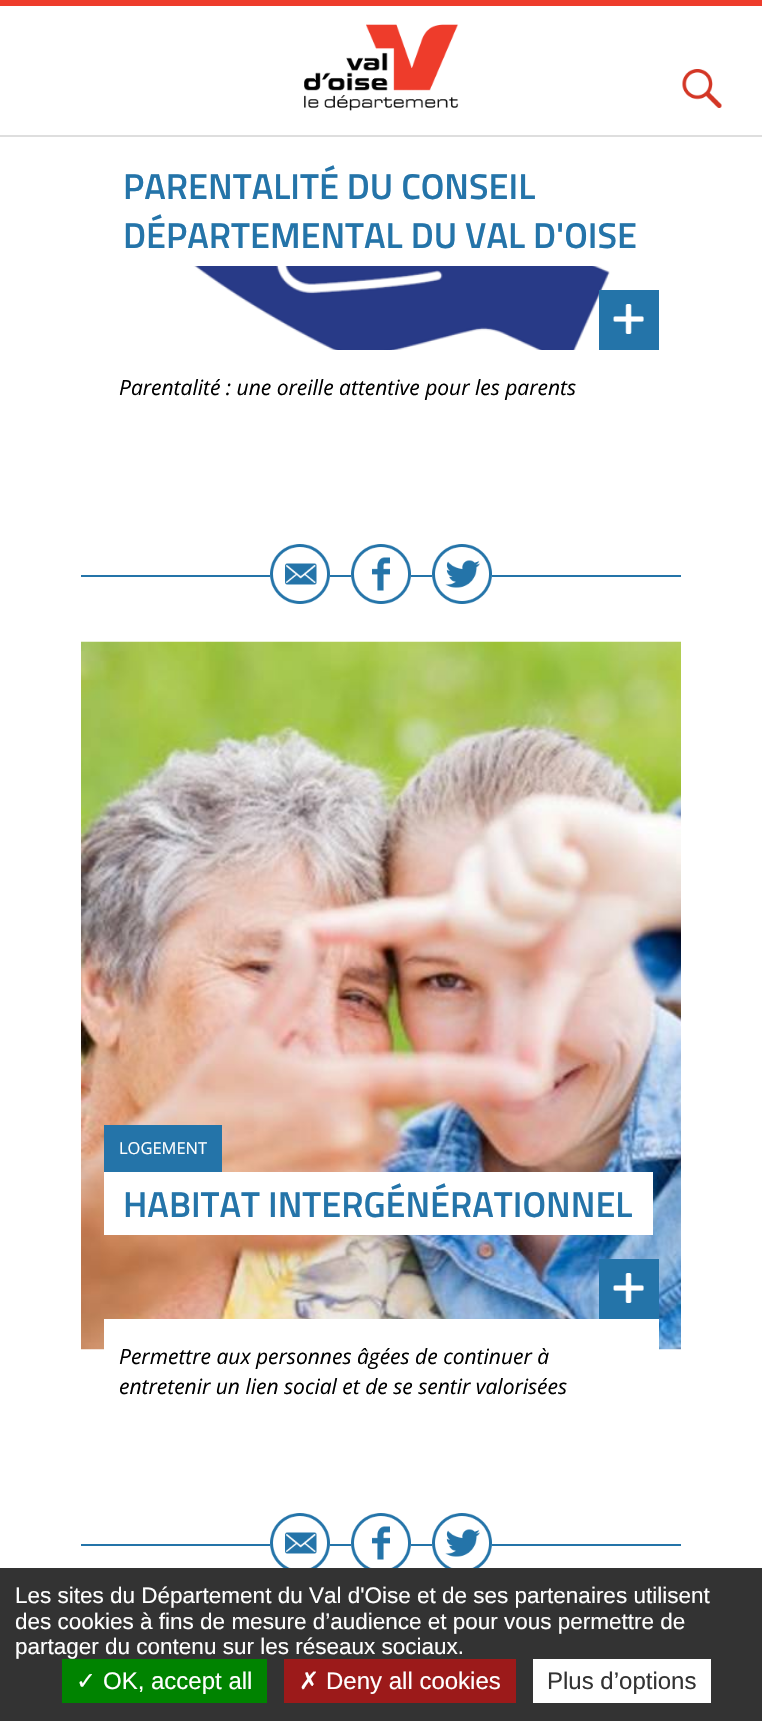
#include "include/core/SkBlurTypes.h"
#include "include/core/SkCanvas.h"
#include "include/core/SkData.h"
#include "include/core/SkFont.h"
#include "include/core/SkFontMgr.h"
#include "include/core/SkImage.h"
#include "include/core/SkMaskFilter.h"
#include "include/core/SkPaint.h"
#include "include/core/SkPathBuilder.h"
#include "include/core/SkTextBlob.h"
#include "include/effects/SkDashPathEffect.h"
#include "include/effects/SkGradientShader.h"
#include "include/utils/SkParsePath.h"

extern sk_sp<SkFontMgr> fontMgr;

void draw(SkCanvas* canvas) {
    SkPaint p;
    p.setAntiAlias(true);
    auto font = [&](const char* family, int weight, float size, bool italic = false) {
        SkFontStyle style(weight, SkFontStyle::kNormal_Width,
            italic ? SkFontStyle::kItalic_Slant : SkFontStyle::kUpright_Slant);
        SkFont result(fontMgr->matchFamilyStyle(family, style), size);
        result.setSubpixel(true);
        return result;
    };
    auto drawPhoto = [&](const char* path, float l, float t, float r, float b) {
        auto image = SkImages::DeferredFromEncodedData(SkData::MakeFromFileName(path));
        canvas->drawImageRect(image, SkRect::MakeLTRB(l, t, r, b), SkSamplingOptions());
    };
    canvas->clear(0xFFFFFFFF);
    p.setColor(0xFFEE3C2B);
    canvas->drawRect(SkRect::MakeLTRB(0, 0, 762, 6), p);
    drawPhoto("media/3.png", 139, 137, 610, 350);
    p.setColor(0xFFFFFFFF);
    canvas->drawPath(SkPathBuilder().moveTo(134, 105).lineTo(134, 110).lineTo(542, 110).lineTo(542, 164).lineTo(134, 164).lineTo(134, 168).lineTo(561, 168).lineTo(561, 105).close().detach(), p);
    p.setStyle(SkPaint::kStroke_Style);
    p.setStrokeWidth(5);
    canvas->drawRect(SkRect::MakeLTRB(121.5f, 107.5f, 543.5f, 165.5f), p);
    p.setStyle(SkPaint::kFill_Style);
    p.setColor(0xFFDEDEDE);
    canvas->drawRect(SkRect::MakeLTRB(0, 135, 762, 137), p);
    drawPhoto("media/1.png", 304, 24, 459, 111);
    drawPhoto("media/2.png", 682, 69, 722, 108);
    p.setColor(0xFFFFFFFF);
    canvas->drawRect(SkRect::MakeLTRB(250, 137, 484, 159), p);
    canvas->drawPath(SkPathBuilder().moveTo(134, 155).lineTo(134, 159).lineTo(536, 159).lineTo(536, 213).lineTo(134, 213).lineTo(134, 218).lineTo(555, 218).lineTo(555, 155).close().detach(), p);
    canvas->drawRect(SkRect::MakeLTRB(139, 159, 485, 207), p);
    auto font1 = font("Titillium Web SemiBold", 600, 36);
    p.setColor(0xFF2474A9);
    canvas->drawString("PARENTALITÉ DU CONSEIL", 123, 199, font1, p);
    p.setColor(0xFFFFFFFF);
    canvas->drawPath(SkPathBuilder().moveTo(134, 203).lineTo(134, 207).lineTo(638, 207).lineTo(638, 261).lineTo(134, 261).lineTo(134, 266).lineTo(657, 266).lineTo(657, 203).close().detach(), p);
    canvas->drawRect(SkRect::MakeLTRB(139, 207, 586, 261), p);
    p.setColor(0xFF2474A9);
    canvas->drawString("DÉPARTEMENTAL DU VAL D'OISE", 123, 248, font1, p);
    canvas->drawRect(SkRect::MakeLTRB(599, 290, 659, 350), p);
    drawPhoto("media/4.png", 613, 304, 644, 334);
    auto font2 = font("Open Sans", 400, 21, true);
    p.setColor(0xFF000000);
    canvas->drawString("Parentalité : une oreille attentive pour les parents", 119, 395, font2, p);
    p.setColor(0xFF2474A9);
    canvas->drawRect(SkRect::MakeLTRB(81, 575, 681, 577), p);
    p.setColor(0xFFFFFFFF);
    canvas->drawRect(SkRect::MakeLTRB(270, 575, 330, 577), p);
    drawPhoto("media/5.png", 270, 544, 330, 604);
    canvas->drawRect(SkRect::MakeLTRB(351, 575, 411, 577), p);
    drawPhoto("media/6.png", 351, 544, 411, 604);
    canvas->drawRect(SkRect::MakeLTRB(432, 575, 492, 577), p);
    drawPhoto("media/7.png", 432, 544, 492, 604);
    drawPhoto("media/8.png", 81, 641, 681, 1350);
    p.setColor(0xFF2474A9);
    canvas->drawRect(SkRect::MakeLTRB(104, 1125, 222, 1172), p);
    auto font3 = font("Open Sans", 400, 16.5f);
    p.setColor(0xFFFFFFFF);
    canvas->drawString("LOGEMENT", 119, 1154, font3, p);
    canvas->drawPath(SkPathBuilder().moveTo(134, 1172).lineTo(134, 1176).lineTo(633, 1176).lineTo(633, 1230).lineTo(134, 1230).lineTo(134, 1235).lineTo(653, 1235).lineTo(653, 1172).close().detach(), p);
    canvas->drawPath(SkPathBuilder().moveTo(104, 1172).lineTo(104, 1235).lineTo(623, 1235).lineTo(623, 1230).lineTo(123, 1230).lineTo(123, 1176).lineTo(623, 1176).lineTo(623, 1172).close().detach(), p);
    p.setStyle(SkPaint::kStroke_Style);
    canvas->drawRect(SkRect::MakeLTRB(121.5f, 1174.5f, 635.5f, 1232.5f), p);
    p.setStyle(SkPaint::kFill_Style);
    canvas->drawRect(SkRect::MakeLTRB(124, 1177, 633, 1230), p);
    p.setColor(0xFF2474A9);
    canvas->drawString("HABITAT INTERGÉNÉRATIONNEL", 123, 1217, font1, p);
    p.setColor(0xFFFFFFFF);
    canvas->drawRect(SkRect::MakeLTRB(104, 1319, 659, 1350), p);
    p.setColor(0xFF2474A9);
    canvas->drawRect(SkRect::MakeLTRB(599, 1259, 659, 1319), p);
    drawPhoto("media/4.png", 613, 1273, 644, 1303);
    p.setColor(0xFF000000);
    canvas->drawString("Permettre aux personnes âgées de continuer à", 119, 1364, font2, p);
    canvas->drawString("entretenir un lien social et de se sentir valorisées", 119, 1394, font2, p);
    p.setColor(0xFF2474A9);
    canvas->drawRect(SkRect::MakeLTRB(81, 1544, 681, 1546), p);
    p.setColor(0xFFFFFFFF);
    canvas->drawRect(SkRect::MakeLTRB(270, 1544, 330, 1546), p);
    drawPhoto("media/9.png", 270, 1513, 330, 1568);
    canvas->drawRect(SkRect::MakeLTRB(351, 1544, 411, 1546), p);
    drawPhoto("media/10.png", 351, 1513, 411, 1568);
    canvas->drawRect(SkRect::MakeLTRB(432, 1544, 492, 1546), p);
    drawPhoto("media/11.png", 432, 1513, 492, 1568);
    p.setColor(0xFF333333);
    canvas->drawRect(SkRect::MakeLTRB(0, 1568, 762, 1721), p);
    auto font4 = font("Liberation Sans", 400, 22.5f);
    p.setColor(0xFFFFFFFF);
    {
        const struct { const char* s; float x, y; } items[] = {
            {"Les sites du Département du Val d'Oise et de ses partenaires utilisent", 15, 1603},
            {"des cookies à fins de mesure d’audience et pour vous permettre de", 15, 1629},
            {"partager du contenu sur les réseaux sociaux.", 15, 1654},
        };
        for (auto [s, x, y] : items) {
            canvas->drawString(s, x, y, font4, p);
        }
    }
    p.setColor(0xFF008300);
    canvas->drawRect(SkRect::MakeLTRB(62, 1659, 267, 1703), p);
    auto font5 = font("DejaVu Sans", 400, 24);
    p.setColor(0xFFFFFFFF);
    canvas->drawString("✓", 76, 1689, font5, p);
    auto font6 = font("Liberation Sans", 400, 24);
    canvas->drawString("OK, accept all", 103, 1689, font6, p);
    p.setColor(0xFF9C1A1A);
    canvas->drawRect(SkRect::MakeLTRB(284, 1659, 516, 1703), p);
    p.setColor(0xFFFFFFFF);
    canvas->drawString("✗", 299, 1689, font5, p);
    canvas->drawString("Deny all cookies", 326, 1689, font6, p);
    canvas->drawRect(SkRect::MakeLTRB(533, 1659, 711, 1703), p);
    p.setColor(0xFF333333);
    canvas->drawString("Plus d’options", 547, 1689, font6, p);
}
